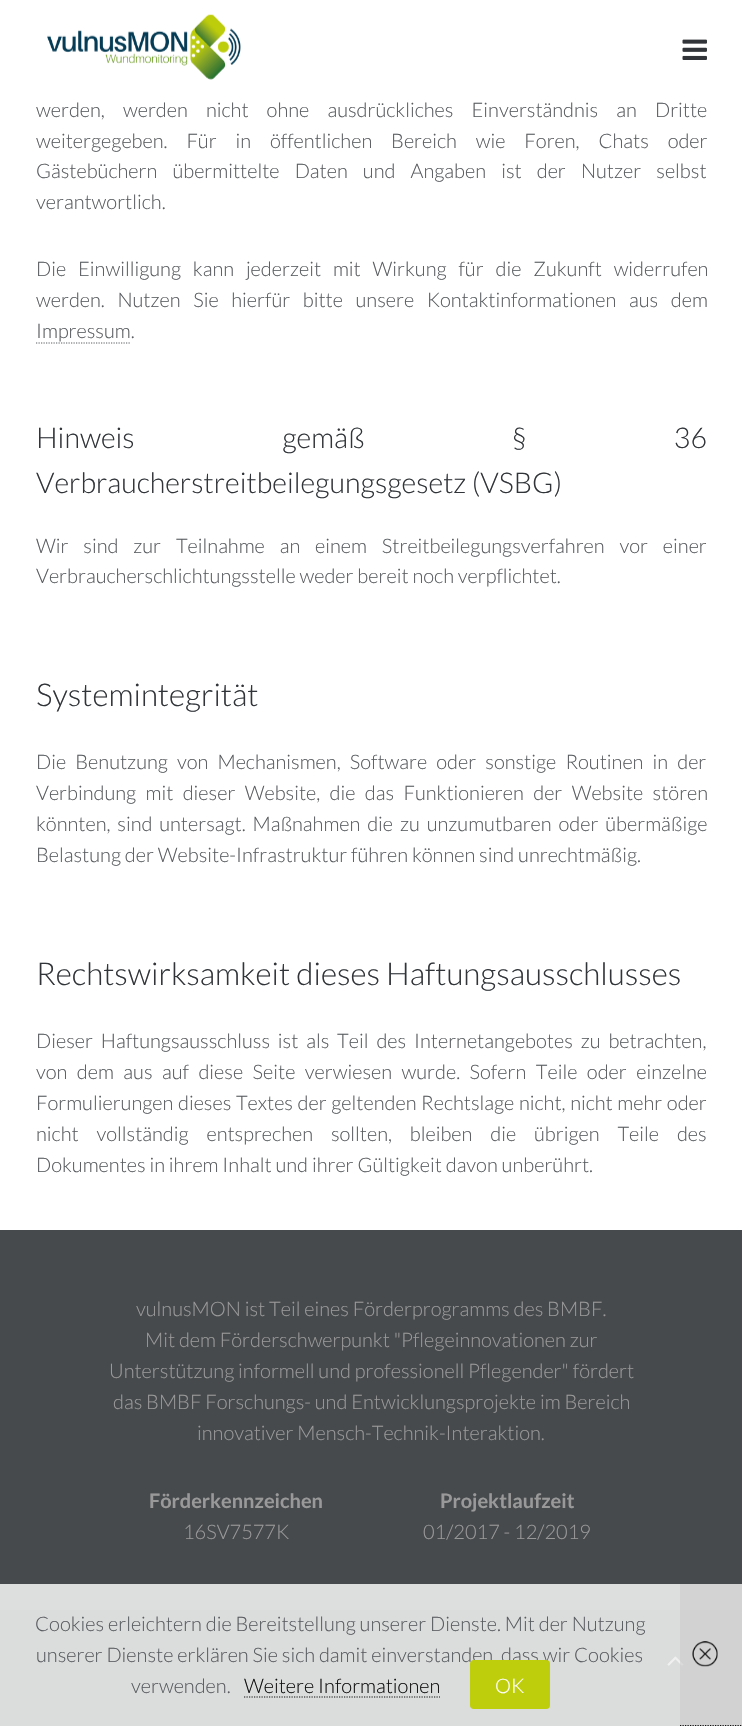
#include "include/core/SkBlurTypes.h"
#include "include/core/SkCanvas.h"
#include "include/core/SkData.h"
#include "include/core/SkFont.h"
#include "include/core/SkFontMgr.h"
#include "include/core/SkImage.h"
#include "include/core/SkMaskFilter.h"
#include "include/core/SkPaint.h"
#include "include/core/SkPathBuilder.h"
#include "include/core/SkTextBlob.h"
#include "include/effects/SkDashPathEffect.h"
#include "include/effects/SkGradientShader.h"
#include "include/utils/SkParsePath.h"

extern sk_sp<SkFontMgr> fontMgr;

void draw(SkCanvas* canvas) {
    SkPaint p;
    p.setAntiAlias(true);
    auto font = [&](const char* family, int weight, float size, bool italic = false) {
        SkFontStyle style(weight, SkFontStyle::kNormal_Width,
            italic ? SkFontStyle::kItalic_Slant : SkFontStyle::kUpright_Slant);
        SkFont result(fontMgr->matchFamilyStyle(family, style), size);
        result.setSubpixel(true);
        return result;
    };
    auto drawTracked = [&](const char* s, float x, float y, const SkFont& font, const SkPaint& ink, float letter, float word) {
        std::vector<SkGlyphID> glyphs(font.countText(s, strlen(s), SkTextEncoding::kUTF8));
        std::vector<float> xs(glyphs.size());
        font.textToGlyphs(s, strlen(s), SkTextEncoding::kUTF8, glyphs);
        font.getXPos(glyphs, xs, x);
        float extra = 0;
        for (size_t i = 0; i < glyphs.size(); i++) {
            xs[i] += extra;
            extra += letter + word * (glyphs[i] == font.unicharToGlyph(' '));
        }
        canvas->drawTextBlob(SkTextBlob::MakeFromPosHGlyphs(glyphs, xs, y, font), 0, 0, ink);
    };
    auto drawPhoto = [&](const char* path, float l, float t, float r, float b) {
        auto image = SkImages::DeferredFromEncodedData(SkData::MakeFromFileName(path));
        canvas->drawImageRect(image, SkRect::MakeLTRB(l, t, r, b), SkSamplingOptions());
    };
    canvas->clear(0xFFFFFFFF);
    drawPhoto("media/1.png", 47, 14, 241, 80);
    drawPhoto("media/2.png", 682, 39, 707, 60);
    auto font1 = font("Lato", 300, 20);
    p.setColor(0xFF5A5D60);
    drawTracked("werden, werden nicht ohne ausdrückliches Einverständnis an Dritte", 36, 117, font1, p, 0, 14.25f);
    drawTracked("weitergegeben. Für in öffentlichen Bereich wie Foren, Chats oder", 36, 148, font1, p, 0, 15);
    drawTracked("Gästebüchern übermittelte Daten und Angaben ist der Nutzer selbst", 36, 178, font1, p, 0, 11.25f);
    canvas->drawString("verantwortlich.", 36, 209, font1, p);
    drawTracked("Die Einwilligung kann jederzeit mit Wirkung für die Zukunft widerrufen", 36, 276, font1, p, 0, 8);
    drawTracked("werden. Nutzen Sie hierfür bitte unsere Kontaktinformationen aus dem", 36, 307, font1, p, 0, 8.75f);
    canvas->drawString("Impressum.", 36, 338, font1, p);
    p.setStyle(SkPaint::kStroke_Style);
    p.setStrokeWidth(1.2f);
    p.setPathEffect(SkDashPathEffect::Make({{1.25f, 1.25f}}, 0));
    canvas->drawPath(SkPathBuilder().moveTo(36, 343).lineTo(130, 343).detach(), p);
    p.setPathEffect(nullptr);
    auto font2 = font("Lato", 300, 28.6f);
    p.setStyle(SkPaint::kFill_Style);
    p.setColor(0xFF313539);
    drawTracked("Hinweis gemäß § 36", 36, 448, font2, p, 0, 142);
    canvas->drawString("Verbraucherstreitbeilegungsgesetz (VSBG)", 36, 493, font2, p);
    p.setColor(0xFF5A5D60);
    drawTracked("Wir sind zur Teilnahme an einem Streitbeilegungsverfahren vor einer", 36, 553, font1, p, 0, 11);
    canvas->drawString("Verbraucherschlichtungsstelle weder bereit noch verpflichtet.", 36, 583, font1, p);
    auto font3 = font("Lato", 300, 31.4f);
    p.setColor(0xFF313539);
    canvas->drawString("Systemintegrität", 36, 706, font3, p);
    p.setColor(0xFF5A5D60);
    drawTracked("Die Benutzung von Mechanismen, Software oder sonstige Routinen in der", 36, 769, font1, p, 0, 5.25f);
    drawTracked("Verbindung mit dieser Website, die das Funktionieren der Website stören", 36, 800, font1, p, 0, 5.5f);
    drawTracked("könnten, sind untersagt. Maßnahmen die zu unzumutbaren oder übermäßige", 36, 831, font1, p, 0, 3);
    canvas->drawString("Belastung der Website-Infrastruktur führen können sind unrechtmäßig.", 36, 862, font1, p);
    p.setColor(0xFF313539);
    canvas->drawString("Rechtswirksamkeit dieses Haftungsausschlusses", 36, 985, font3, p);
    p.setColor(0xFF5A5D60);
    drawTracked("Dieser Haftungsausschluss ist als Teil des Internetangebotes zu betrachten,", 36, 1048, font1, p, 0, 4);
    drawTracked("von dem aus auf diese Seite verwiesen wurde. Sofern Teile oder einzelne", 36, 1079, font1, p, 0, 5.6f);
    drawTracked("Formulierungen dieses Textes der geltenden Rechtslage nicht, nicht mehr oder", 36, 1110, font1, p, 0, 0.75f);
    drawTracked("nicht vollständig entsprechen sollten, bleiben die übrigen Teile des", 36, 1141, font1, p, 0, 14);
    canvas->drawString("Dokumentes in ihrem Inhalt und ihrer Gültigkeit davon unberührt.", 36, 1172, font1, p);
    p.setColor(0xFF474A4D);
    canvas->drawRect(SkRect::MakeLTRB(0, 1230, 742, 1584), p);
    p.setColor(0xFFDDDEDE);
    canvas->drawRect(SkRect::MakeLTRB(0, 1584, 742, 1610), p);
    p.setColor(0xFF999999);
    {
        const struct { const char* s; float x, y; } items[] = {
            {"vulnusMON ist Teil eines Förderprogramms des BMBF.", 136, 1316},
            {"Mit dem Förderschwerpunkt \"Pflegeinnovationen zur", 145, 1347},
            {"Unterstützung informell und professionell Pflegender\" fördert", 109, 1378},
            {"das BMBF Forschungs- und Entwicklungsprojekte im Bereich", 113, 1409},
            {"innovativer Mensch-Technik-Interaktion.", 197, 1440},
        };
        for (auto [s, x, y] : items) {
            canvas->drawString(s, x, y, font1, p);
        }
    }
    auto font4 = font("Lato", 700, 20);
    canvas->drawString("Förderkennzeichen", 149, 1508, font4, p);
    canvas->drawString("16SV7577K", 183, 1539, font1, p);
    canvas->drawString("Projektlaufzeit", 440, 1508, font4, p);
    canvas->drawString("01/2017 - 12/2019", 423, 1539, font1, p);
    p.setColor(0xFFDBDCDC);
    canvas->drawRect(SkRect::MakeLTRB(0, 1610, 742, 1726), p);
    p.setColor(0xFF5A5D60);
    {
        const struct { const char* s; float x, y; } items[] = {
            {"Cookies erleichtern die Bereitstellung unserer Dienste. Mit der Nutzung", 35, 1631},
            {"unserer Dienste erklären Sie sich damit einverstanden, dass wir Cookies", 36, 1662},
            {"verwenden.", 131, 1693},
        };
        for (auto [s, x, y] : items) {
            canvas->drawString(s, x, y, font1, p);
        }
    }
    p.setColor(0xFF111111);
    canvas->drawString("Weitere Informationen", 244, 1693, font1, p);
    p.setStyle(SkPaint::kStroke_Style);
    p.setPathEffect(SkDashPathEffect::Make({{1.25f, 1.25f}}, 0));
    canvas->drawPath(SkPathBuilder().moveTo(244, 1697).lineTo(440, 1697).detach(), p);
    p.setPathEffect(nullptr);
    p.setStyle(SkPaint::kFill_Style);
    p.setColor(0xFFBECD0C);
    canvas->drawRoundRect(SkRect::MakeLTRB(470, 1660, 550, 1709), 4, 4, p);
    p.setColor(0xFFFFFFFF);
    canvas->drawString("OK", 495, 1693, font1, p);
    drawPhoto("media/4.png", 667, 1656, 684, 1666);
    p.setColor(0x99CCCCCC);
    canvas->drawRect(SkRect::MakeLTRB(680, 1584, 742, 1726), p);
    drawPhoto("media/3.png", 692, 1641, 718, 1667);
    p.setStyle(SkPaint::kStroke_Style);
    p.setColor(0xFF111111);
    p.setPathEffect(SkDashPathEffect::Make({{1.25f, 1.25f}}, 0));
    canvas->drawPath(SkPathBuilder().moveTo(680, 1725.5f).lineTo(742.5f, 1725.5f).detach(), p);
    p.setPathEffect(nullptr);
}
